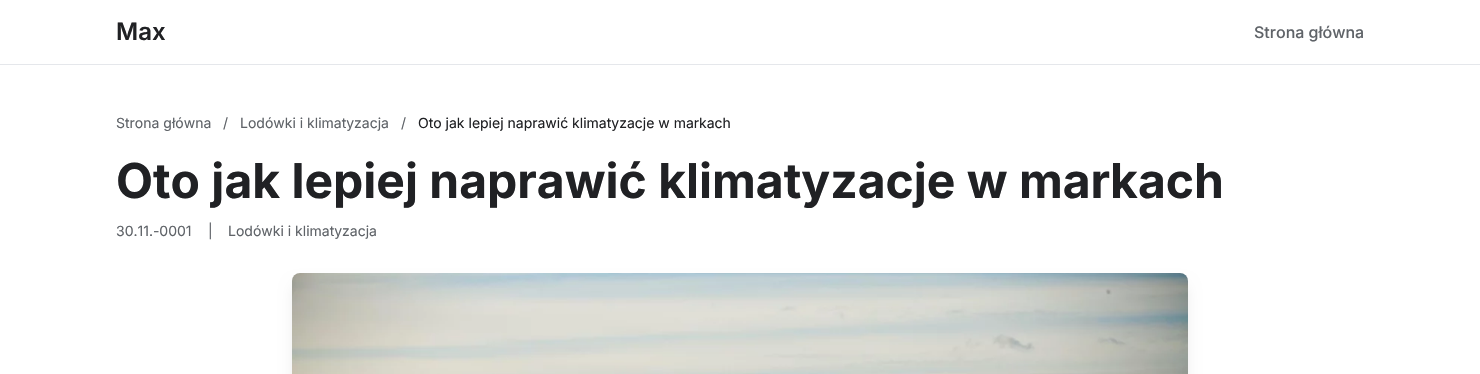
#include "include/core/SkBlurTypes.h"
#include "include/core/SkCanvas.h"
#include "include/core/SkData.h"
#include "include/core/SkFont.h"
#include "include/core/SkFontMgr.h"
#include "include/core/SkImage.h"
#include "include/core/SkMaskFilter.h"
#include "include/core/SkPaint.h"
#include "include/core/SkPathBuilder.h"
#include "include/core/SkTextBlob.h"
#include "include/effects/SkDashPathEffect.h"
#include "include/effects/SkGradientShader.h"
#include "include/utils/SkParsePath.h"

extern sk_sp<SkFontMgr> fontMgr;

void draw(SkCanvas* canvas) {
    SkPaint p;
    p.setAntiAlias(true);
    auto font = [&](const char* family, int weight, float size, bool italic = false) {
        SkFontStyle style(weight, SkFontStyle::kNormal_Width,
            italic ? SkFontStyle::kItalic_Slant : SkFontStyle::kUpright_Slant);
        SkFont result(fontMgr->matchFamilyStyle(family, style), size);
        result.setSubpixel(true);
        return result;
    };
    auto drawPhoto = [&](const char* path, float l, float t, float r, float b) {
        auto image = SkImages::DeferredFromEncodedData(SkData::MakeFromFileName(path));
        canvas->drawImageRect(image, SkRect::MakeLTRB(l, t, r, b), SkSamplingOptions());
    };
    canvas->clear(0xFFFFFFFF);
    p.setColor(0xFFE5E7EB);
    canvas->drawRect(SkRect::MakeLTRB(0, 64, 1480, 65), p);
    auto font1 = font("Inter", 600, 24);
    p.setColor(0xFF202124);
    canvas->drawString("Max", 116, 40, font1, p);
    auto font2 = font("Inter", 500, 16);
    p.setColor(0xFF5F6368);
    canvas->drawString("Strona główna", 1254, 38, font2, p);
    auto font3 = font("Inter", 400, 14);
    {
        const struct { const char* s; float x, y; } items[] = {
            {"Strona główna", 116, 128},
            {"/", 223, 128},
            {"Lodówki i klimatyzacja", 240, 128},
            {"/", 401, 128},
        };
        for (auto [s, x, y] : items) {
            canvas->drawString(s, x, y, font3, p);
        }
    }
    p.setColor(0xFF202124);
    canvas->drawString("Oto jak lepiej naprawić klimatyzacje w markach", 418, 128, font3, p);
    auto font4 = font("Inter", 700, 48);
    canvas->drawString("Oto jak lepiej naprawić klimatyzacje w markach", 116, 198, font4, p);
    p.setColor(0xFF5F6368);
    {
        const struct { const char* s; float x, y; } items[] = {
            {"30.11.-0001", 116, 236},
            {"|", 208, 236},
            {"Lodówki i klimatyzacja", 228, 236},
        };
        for (auto [s, x, y] : items) {
            canvas->drawString(s, x, y, font3, p);
        }
    }
    p.setColor(0x1A000000);
    p.setMaskFilter(SkMaskFilter::MakeBlur(kNormal_SkBlurStyle, 7.5f));
    canvas->drawRoundRect(SkRect::MakeLTRB(295, 286, 1185, 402), 5, 5, p);
    p.setMaskFilter(nullptr);
    drawPhoto("media/1.png", 292, 273, 1188, 374);
}
